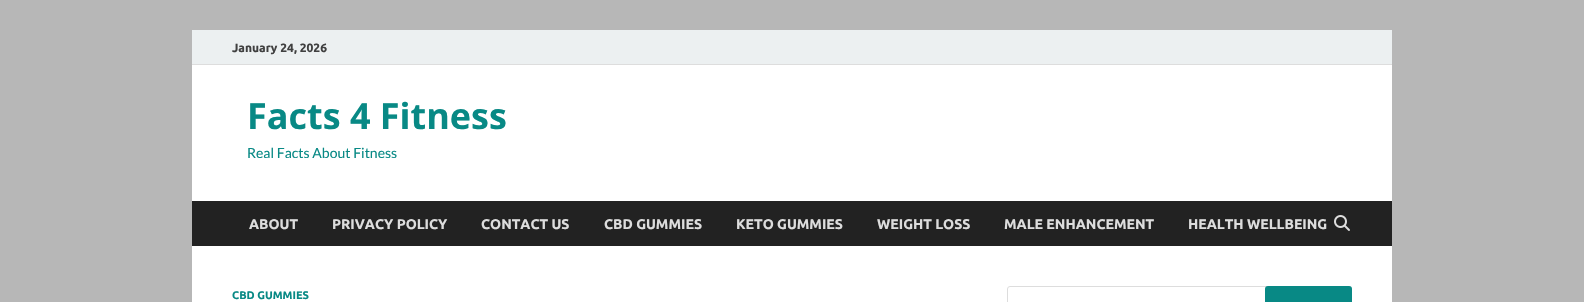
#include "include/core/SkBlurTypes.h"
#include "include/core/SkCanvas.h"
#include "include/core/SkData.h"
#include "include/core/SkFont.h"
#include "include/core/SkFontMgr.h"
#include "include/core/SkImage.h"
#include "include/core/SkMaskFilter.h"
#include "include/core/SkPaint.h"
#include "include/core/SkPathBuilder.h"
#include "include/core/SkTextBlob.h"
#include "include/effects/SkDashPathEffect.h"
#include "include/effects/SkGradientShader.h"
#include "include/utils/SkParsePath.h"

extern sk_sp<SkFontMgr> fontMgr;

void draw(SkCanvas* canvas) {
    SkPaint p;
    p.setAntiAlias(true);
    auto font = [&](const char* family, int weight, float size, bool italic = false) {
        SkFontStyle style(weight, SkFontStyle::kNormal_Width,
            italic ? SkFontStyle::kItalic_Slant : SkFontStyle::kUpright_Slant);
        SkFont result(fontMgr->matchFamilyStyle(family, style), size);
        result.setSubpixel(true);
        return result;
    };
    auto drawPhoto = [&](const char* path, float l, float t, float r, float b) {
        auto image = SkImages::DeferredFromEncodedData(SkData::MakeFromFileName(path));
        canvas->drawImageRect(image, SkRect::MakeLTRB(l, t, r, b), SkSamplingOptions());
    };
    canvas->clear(0xFFB7B7B7);
    {
        const struct { float l, t, r, b; SkColor color; } items[] = {
            {192, 65, 1392, 302, 0xFFFFFFFF},
            {192, 30, 1392, 64, 0xFFECF0F1},
            {192, 64, 1392, 65, 0xFFDDDDDD},
        };
        for (auto [l, t, r, b, color] : items) {
            p.setColor(color);
            canvas->drawRect(SkRect::MakeLTRB(l, t, r, b), p);
        }
    }
    auto font1 = font("Ubuntu", 700, 12);
    p.setColor(0xFF404040);
    canvas->drawString("January 24, 2026", 232, 52, font1, p);
    auto font2 = font("Open Sans", 700, 36);
    p.setColor(0xFF088985);
    canvas->drawString("Facts 4 Fitness", 247, 129, font2, p);
    auto font3 = font("Lato", 400, 14);
    canvas->drawString("Real Facts About Fitness", 247, 158, font3, p);
    p.setColor(0xFF222222);
    canvas->drawRect(SkRect::MakeLTRB(192, 201, 1392, 246), p);
    auto font4 = font("Ubuntu", 700, 14);
    p.setColor(0xFFDDDDDD);
    {
        const struct { const char* s; float x, y; } items[] = {
            {"ABOUT", 249, 229},
            {"PRIVACY POLICY", 332, 229},
            {"CONTACT US", 481, 229},
            {"CBD GUMMIES", 604, 229},
            {"KETO GUMMIES", 736, 229},
            {"WEIGHT LOSS", 877, 229},
            {"MALE ENHANCEMENT", 1004, 229},
            {"HEALTH WELLBEING", 1188, 229},
        };
        for (auto [s, x, y] : items) {
            canvas->drawString(s, x, y, font4, p);
        }
    }
    drawPhoto("media/1.png", 1334, 215, 1350, 231);
    auto font5 = font("Ubuntu", 700, 11);
    p.setColor(0xFF088985);
    canvas->drawString("CBD GUMMIES", 232, 299, font5, p);
    p.setStyle(SkPaint::kStroke_Style);
    p.setStrokeWidth(1);
    p.setColor(0xFFDDDDDD);
    canvas->drawRoundRect(SkRect::MakeLTRB(1007.5f, 286.5f, 1351.5f, 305.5f), 2.5f, 2.5f, p);
    p.setStyle(SkPaint::kFill_Style);
    p.setColor(0xFF088985);
    canvas->drawRoundRect(SkRect::MakeLTRB(1265, 286, 1352, 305), 3, 3, p);
}
